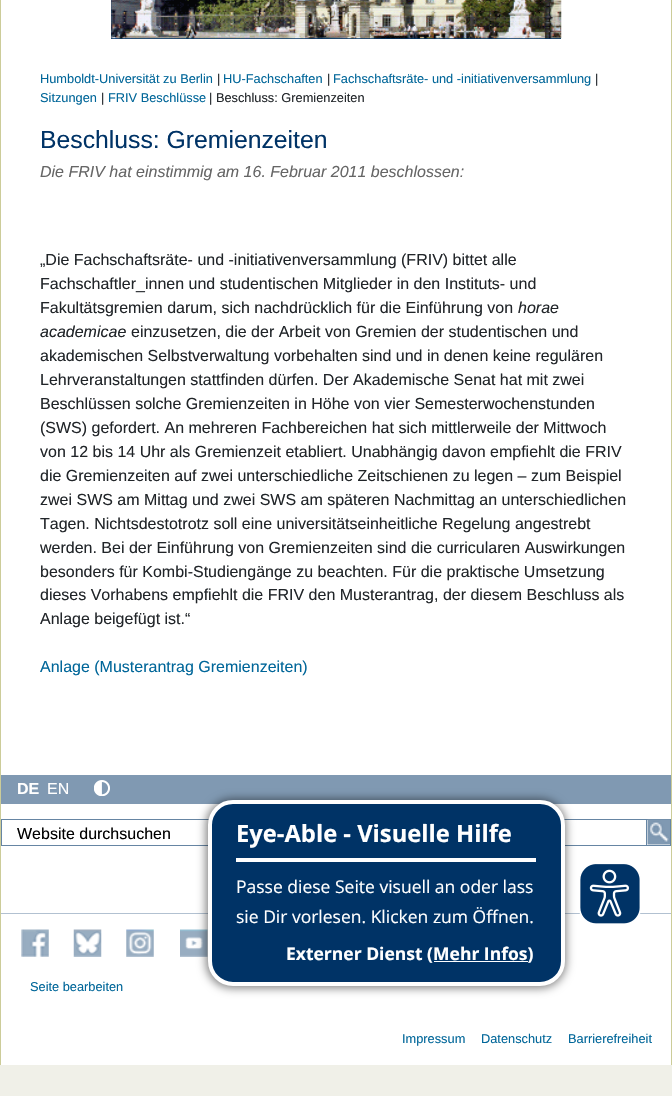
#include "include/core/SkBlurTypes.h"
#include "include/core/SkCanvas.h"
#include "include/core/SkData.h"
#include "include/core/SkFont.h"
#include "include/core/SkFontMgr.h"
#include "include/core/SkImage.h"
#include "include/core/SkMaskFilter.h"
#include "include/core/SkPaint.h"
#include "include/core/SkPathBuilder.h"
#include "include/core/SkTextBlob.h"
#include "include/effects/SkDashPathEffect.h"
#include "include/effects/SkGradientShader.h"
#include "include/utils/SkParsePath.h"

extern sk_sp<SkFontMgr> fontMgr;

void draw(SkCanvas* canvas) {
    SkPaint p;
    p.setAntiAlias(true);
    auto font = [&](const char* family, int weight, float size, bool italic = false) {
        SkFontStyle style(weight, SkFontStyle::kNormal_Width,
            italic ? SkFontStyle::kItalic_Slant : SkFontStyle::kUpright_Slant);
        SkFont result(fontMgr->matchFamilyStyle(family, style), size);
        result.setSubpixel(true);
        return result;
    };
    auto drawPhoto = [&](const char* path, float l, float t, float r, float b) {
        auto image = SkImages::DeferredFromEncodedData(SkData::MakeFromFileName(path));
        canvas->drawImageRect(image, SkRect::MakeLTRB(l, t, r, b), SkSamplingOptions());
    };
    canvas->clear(0xFFF0F0E8);
    p.setColor(0xFFFFFFFF);
    canvas->drawRect(SkRect::MakeLTRB(1, 0, 671, 1065), p);
    p.setColor(0xFF003366);
    canvas->drawRect(SkRect::MakeLTRB(111, 0, 561, 39), p);
    drawPhoto("media/1.png", 111, 0, 562, 39);
    p.setColor(0xFFCCCC99);
    canvas->drawRect(SkRect::MakeLTRB(671, 0, 672, 1065), p);
    canvas->drawRect(SkRect::MakeLTRB(0, 0, 1, 1065), p);
    auto font1 = font("Liberation Sans", 400, 12.8f);
    p.setColor(0xFF006699);
    canvas->drawString("Humboldt-Universität zu Berlin", 40, 83, font1, p);
    p.setColor(0xFF212529);
    canvas->drawString("|", 217, 83, font1, p);
    p.setColor(0xFF006699);
    canvas->drawString("HU-Fachschaften", 223, 83, font1, p);
    p.setColor(0xFF212529);
    canvas->drawString("|", 327, 83, font1, p);
    p.setColor(0xFF006699);
    canvas->drawString("Fachschaftsräte- und -initiativenversammlung", 333, 83, font1, p);
    p.setColor(0xFF212529);
    canvas->drawString("|", 595, 83, font1, p);
    p.setColor(0xFF006699);
    canvas->drawString("Sitzungen", 40, 102, font1, p);
    p.setColor(0xFF212529);
    canvas->drawString("|", 101, 102, font1, p);
    p.setColor(0xFF006699);
    canvas->drawString("FRIV Beschlüsse", 108, 102, font1, p);
    p.setColor(0xFF212529);
    canvas->drawString("| Beschluss: Gremienzeiten", 209, 102, font1, p);
    auto font2 = font("Liberation Sans", 400, 24.75f);
    p.setColor(0xFF003366);
    canvas->drawString("Beschluss: Gremienzeiten", 40, 148, font2, p);
    auto font3 = font("Liberation Sans", 400, 16, true);
    p.setColor(0xFF666666);
    canvas->drawString("Die FRIV hat einstimmig am 16. Februar 2011 beschlossen:", 40, 177, font3, p);
    auto font4 = font("Liberation Sans", 400, 16);
    p.setColor(0xFF212529);
    {
        const struct { const char* s; float x, y; } items[] = {
            {"„Die Fachschaftsräte- und -initiativenversammlung (FRIV) bittet alle", 40, 265},
            {"Fachschaftler_innen und studentischen Mitglieder in den Instituts- und", 40, 289},
            {"Fakultätsgremien darum, sich nachdrücklich für die Einführung von", 40, 313},
        };
        for (auto [s, x, y] : items) {
            canvas->drawString(s, x, y, font4, p);
        }
    }
    canvas->drawString("horae", 518, 313, font3, p);
    canvas->drawString("academicae", 40, 337, font3, p);
    {
        const struct { const char* s; float x, y; } items[] = {
            {"einzusetzen, die der Arbeit von Gremien der studentischen und", 131, 337},
            {"akademischen Selbstverwaltung vorbehalten sind und in denen keine regulären", 40, 361},
            {"Lehrveranstaltungen stattfinden dürfen. Der Akademische Senat hat mit zwei", 40, 385},
            {"Beschlüssen solche Gremienzeiten in Höhe von vier Semesterwochenstunden", 40, 409},
            {"(SWS) gefordert. An mehreren Fachbereichen hat sich mittlerweile der Mittwoch", 40, 433},
            {"von 12 bis 14 Uhr als Gremienzeit etabliert. Unabhängig davon empfiehlt die FRIV", 40, 457},
            {"die Gremienzeiten auf zwei unterschiedliche Zeitschienen zu legen – zum Beispiel", 40, 481},
            {"zwei SWS am Mittag und zwei SWS am späteren Nachmittag an unterschiedlichen", 40, 505},
            {"Tagen. Nichtsdestotrotz soll eine universitätseinheitliche Regelung angestrebt", 40, 529},
            {"werden. Bei der Einführung von Gremienzeiten sind die curricularen Auswirkungen", 40, 553},
            {"besonders für Kombi-Studiengänge zu beachten. Für die praktische Umsetzung", 40, 577},
            {"dieses Vorhabens empfiehlt die FRIV den Musterantrag, der diesem Beschluss als", 40, 600},
            {"Anlage beigefügt ist.“", 40, 624},
        };
        for (auto [s, x, y] : items) {
            canvas->drawString(s, x, y, font4, p);
        }
    }
    p.setColor(0xFF006699);
    canvas->drawString("Anlage (Musterantrag Gremienzeiten)", 40, 672, font4, p);
    p.setColor(0xFF8099B2);
    canvas->drawRect(SkRect::MakeLTRB(1, 775, 671, 804), p);
    auto font5 = font("Liberation Sans", 700, 16);
    p.setColor(0xFFFFFFFF);
    canvas->drawString("DE", 17, 794, font5, p);
    canvas->drawString("EN", 47, 794, font4, p);
    drawPhoto("media/2.png", 94, 780, 110, 796);
    p.setStyle(SkPaint::kStroke_Style);
    p.setStrokeWidth(1);
    p.setColor(0xFF6685A3);
    canvas->drawRect(SkRect::MakeLTRB(1.5f, 819.5f, 670.5f, 845.5f), p);
    p.setStyle(SkPaint::kFill_Style);
    p.setColor(0xFF000000);
    canvas->drawString("Website durchsuchen", 17, 839, font4, p);
    p.setStyle(SkPaint::kStroke_Style);
    p.setColor(0xFF6685A3);
    canvas->drawRect(SkRect::MakeLTRB(646.5f, 819.5f, 670.5f, 845.5f), p);
    drawPhoto("media/3.png", 647, 819, 670, 845);
    p.setStyle(SkPaint::kFill_Style);
    p.setColor(0xFFB2C1D1);
    canvas->drawRect(SkRect::MakeLTRB(1, 913, 671, 914), p);
    drawPhoto("media/8.png", 180, 929, 208, 957);
    p.setColor(0x80000000);
    p.setMaskFilter(SkMaskFilter::MakeBlur(kNormal_SkBlurStyle, 5));
    canvas->drawRoundRect(SkRect::MakeLTRB(206, 799, 566, 988), 26, 26, p);
    p.setMaskFilter(nullptr);
    p.setColor(0xFF003366);
    canvas->drawRoundRect(SkRect::MakeLTRB(210, 802, 563, 984), 23, 23, p);
    p.setStyle(SkPaint::kStroke_Style);
    p.setStrokeWidth(4);
    p.setColor(0xFFFFFFFF);
    canvas->drawRoundRect(SkRect::MakeLTRB(210, 802, 563, 984), 23, 23, p);
    p.setStyle(SkPaint::kFill_Style);
    canvas->drawRect(SkRect::MakeLTRB(236, 858, 536, 862), p);
    auto font6 = font("Open Sans", 700, 23.75f);
    canvas->drawString("Eye-Able - Visuelle Hilfe", 236, 842, font6, p);
    auto font7 = font("Open Sans", 400, 17.5f);
    canvas->drawString("Passe diese Seite visuell an oder lass", 236, 893, font7, p);
    canvas->drawString("sie Dir vorlesen. Klicken zum Öffnen.", 236, 923, font7, p);
    auto font8 = font("Open Sans", 700, 17.5f);
    canvas->drawString("Externer Dienst (Mehr Infos)", 286, 960, font8, p);
    canvas->drawRect(SkRect::MakeLTRB(434, 961, 528, 962), p);
    drawPhoto("media/4.png", 579, 864, 641, 924);
    drawPhoto("media/5.png", 21, 929, 49, 957);
    drawPhoto("media/6.png", 73, 929, 102, 957);
    drawPhoto("media/7.png", 126, 929, 154, 957);
    p.setColor(0xFF006699);
    {
        const struct { const char* s; float x, y; } items[] = {
            {"Seite bearbeiten", 30, 991},
            {"Impressum", 402, 1043},
            {"Datenschutz", 481, 1043},
            {"Barrierefreiheit", 568, 1043},
        };
        for (auto [s, x, y] : items) {
            canvas->drawString(s, x, y, font1, p);
        }
    }
}
